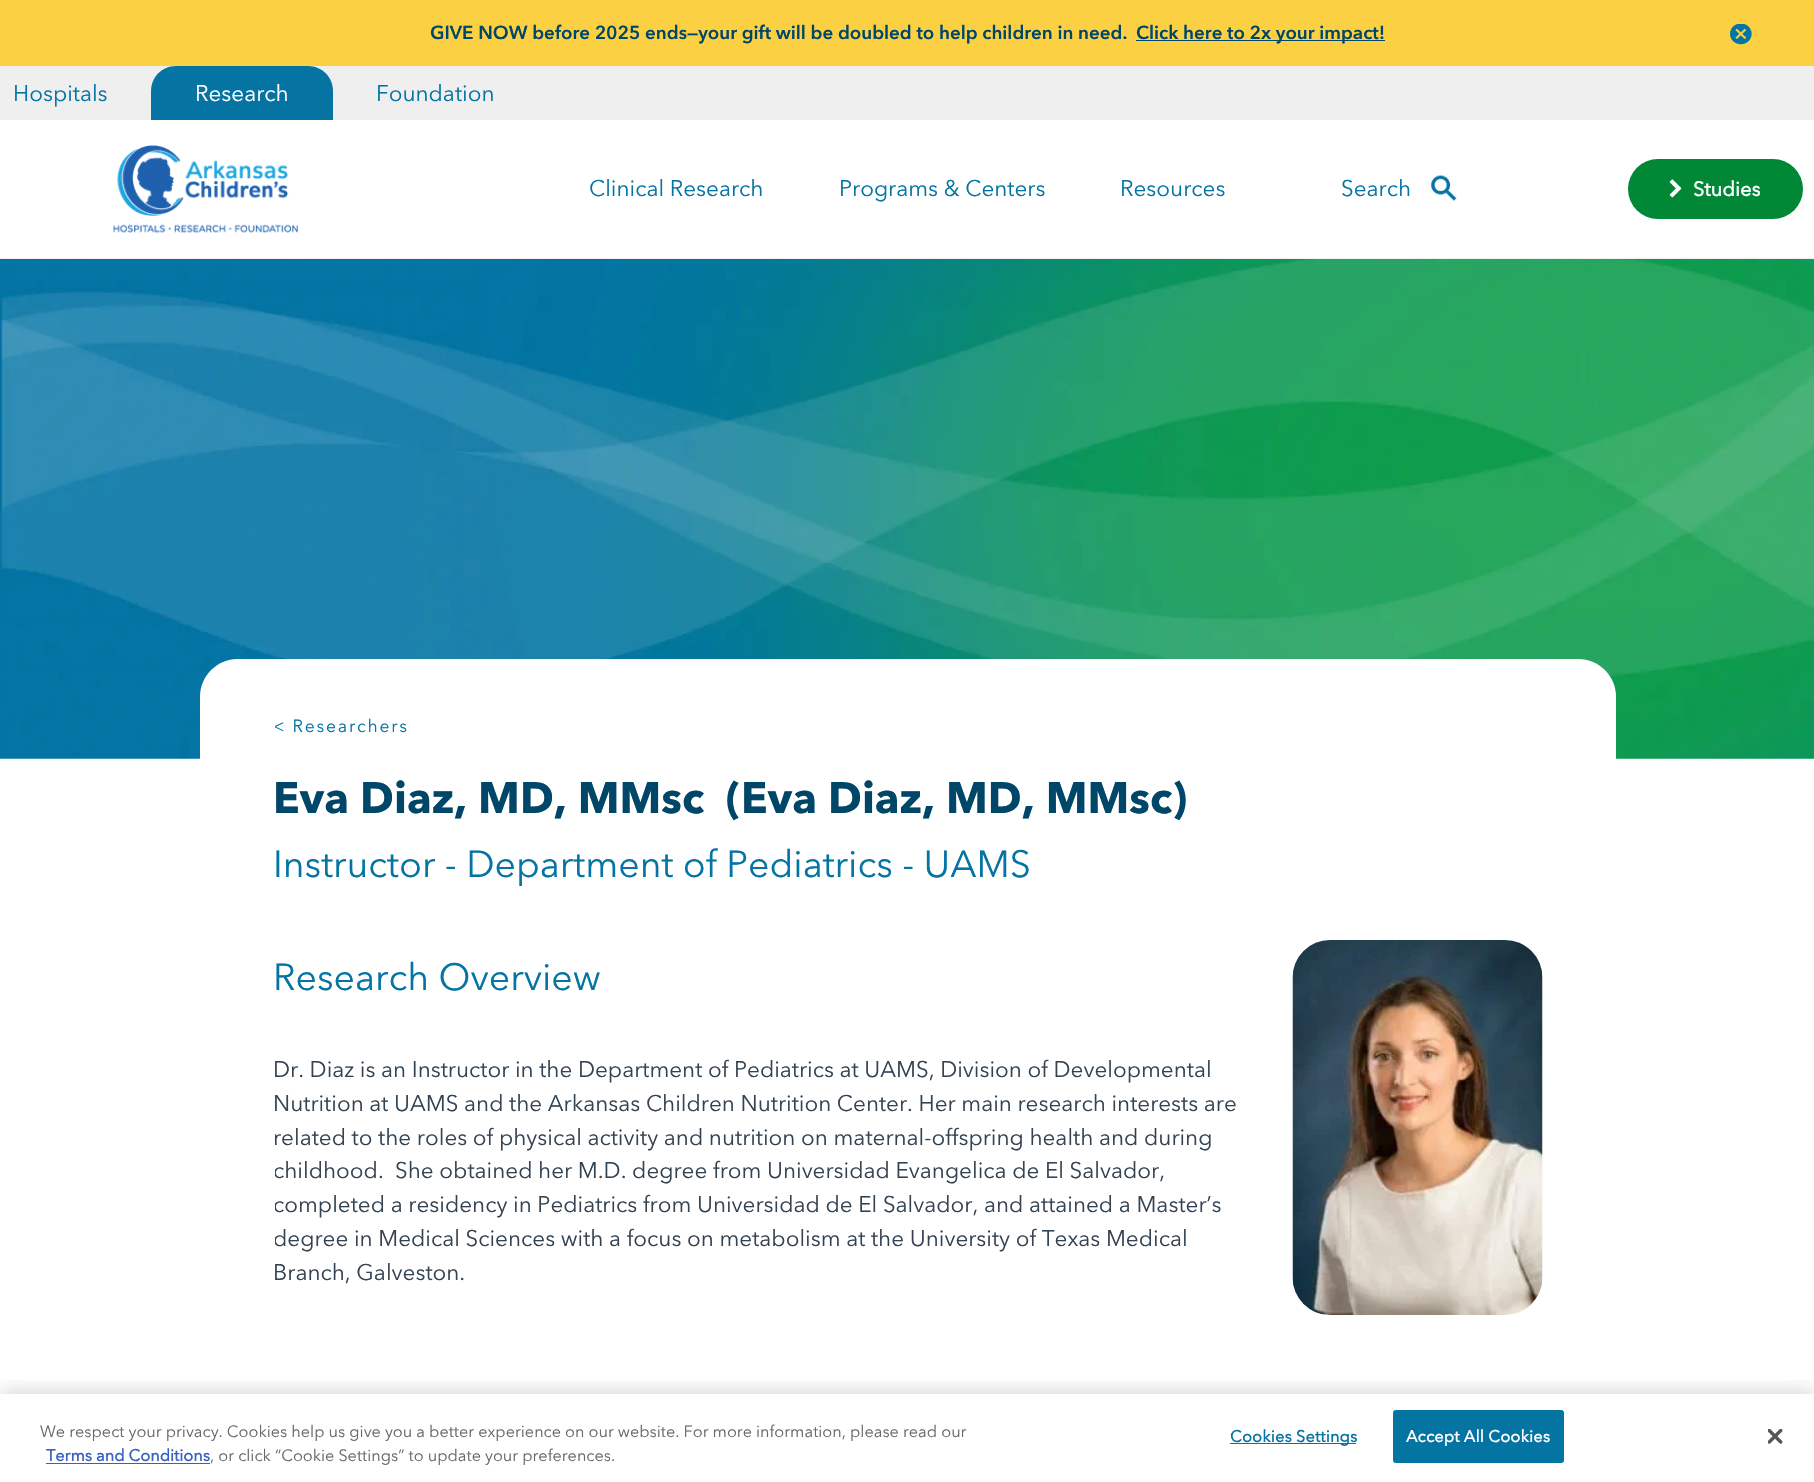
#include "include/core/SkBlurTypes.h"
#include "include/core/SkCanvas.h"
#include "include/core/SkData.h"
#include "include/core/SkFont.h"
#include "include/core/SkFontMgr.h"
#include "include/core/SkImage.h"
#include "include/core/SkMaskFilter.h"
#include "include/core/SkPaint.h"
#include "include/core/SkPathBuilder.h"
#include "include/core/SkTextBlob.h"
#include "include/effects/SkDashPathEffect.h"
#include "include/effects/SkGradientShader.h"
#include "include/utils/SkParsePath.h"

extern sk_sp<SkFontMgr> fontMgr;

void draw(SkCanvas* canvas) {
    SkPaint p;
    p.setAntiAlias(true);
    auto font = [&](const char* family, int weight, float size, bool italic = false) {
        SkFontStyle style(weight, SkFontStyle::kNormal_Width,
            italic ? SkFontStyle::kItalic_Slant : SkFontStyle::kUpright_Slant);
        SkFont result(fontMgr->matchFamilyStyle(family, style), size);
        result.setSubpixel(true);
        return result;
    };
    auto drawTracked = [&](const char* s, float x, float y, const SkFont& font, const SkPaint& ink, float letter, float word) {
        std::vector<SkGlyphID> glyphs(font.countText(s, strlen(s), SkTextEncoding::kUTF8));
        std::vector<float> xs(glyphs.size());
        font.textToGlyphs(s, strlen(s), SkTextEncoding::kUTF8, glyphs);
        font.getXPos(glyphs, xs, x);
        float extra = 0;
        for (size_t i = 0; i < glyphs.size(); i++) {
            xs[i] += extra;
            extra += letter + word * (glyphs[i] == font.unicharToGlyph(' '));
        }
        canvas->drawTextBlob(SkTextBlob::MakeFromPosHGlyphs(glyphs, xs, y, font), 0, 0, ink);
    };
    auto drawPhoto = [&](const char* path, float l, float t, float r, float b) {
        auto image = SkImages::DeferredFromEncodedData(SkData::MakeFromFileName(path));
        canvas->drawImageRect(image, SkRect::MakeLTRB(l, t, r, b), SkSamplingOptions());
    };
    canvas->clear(0xFFFFFFFF);
    p.setColor(0xFFF0F0F0);
    canvas->drawRect(SkRect::MakeLTRB(0, 258, 1814, 259), p);
    p.setColor(0xFFFBD043);
    canvas->drawRect(SkRect::MakeLTRB(0, 0, 1814, 66), p);
    auto font1 = font("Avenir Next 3", 700, 18.75f);
    p.setColor(0xFF004668);
    canvas->drawString("GIVE NOW before 2025 ends—your gift will be doubled to help children in need.", 430, 39, font1, p);
    canvas->drawRect(SkRect::MakeLTRB(1136, 40, 1385, 41), p);
    canvas->drawString("Click here to 2x your impact!", 1136, 39, font1, p);
    drawPhoto("media/1.png", 1730, 24, 1752, 45);
    p.setColor(0xFFEFEFEF);
    canvas->drawRect(SkRect::MakeLTRB(0, 66, 1814, 120), p);
    auto font2 = font("Avenir Next", 400, 22.5f);
    p.setColor(0xFF0374A4);
    canvas->drawString("Hospitals", 13, 101, font2, p);
    p.setColor(0xFF0674A3);
    canvas->drawPath(SkPathBuilder().moveTo(176, 66).lineTo(308, 66).cubicTo(322, 66, 333, 77, 333, 91).lineTo(333, 120).lineTo(151, 120).lineTo(151, 91).cubicTo(151, 77, 162, 66, 176, 66).close().detach(), p);
    p.setColor(0xFFFFFFFF);
    canvas->drawString("Research", 195, 101, font2, p);
    p.setColor(0xFF0374A4);
    canvas->drawString("Foundation", 376, 101, font2, p);
    drawPhoto("media/2.png", 113, 145, 298, 233);
    {
        const struct { const char* s; float x, y; } items[] = {
            {"Clinical Research", 589, 196},
            {"Programs & Centers", 839, 196},
            {"Resources", 1120, 196},
            {"Search", 1341, 196},
        };
        for (auto [s, x, y] : items) {
            canvas->drawString(s, x, y, font2, p);
        }
    }
    drawPhoto("media/3.png", 1431, 175, 1457, 201);
    p.setColor(0xFF008836);
    canvas->drawRoundRect(SkRect::MakeLTRB(1628, 159, 1803, 219), 30, 30, p);
    drawPhoto("media/4.png", 1669, 179, 1682, 198);
    auto font3 = font("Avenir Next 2", 700, 20);
    p.setColor(0xFFFFFFFF);
    canvas->drawString("Studies", 1693, 196, font3, p);
    drawPhoto("media/5.png", 0, 259, 1814, 759);
    canvas->drawRect(SkRect::MakeLTRB(275, 659, 1541, 759), p);
    auto font4 = font("Avenir Next", 400, 17.5f);
    p.setColor(0xFF0374A4);
    drawTracked("< Researchers", 273, 732, font4, p, 1.75f, 0);
    p.setColor(0xFF344352);
    {
        const struct { const char* s; float x, y; } items[] = {
            {"childhood.  She obtained her M.D. degree from Universidad Evangelica de El Salvador,", 273, 1178},
            {"completed a residency in Pediatrics from Universidad de El Salvador, and attained a Master’s", 273, 1212},
            {"degree in Medical Sciences with a focus on metabolism at the University of Texas Medical", 273, 1246},
        };
        for (auto [s, x, y] : items) {
            canvas->drawString(s, x, y, font2, p);
        }
    }
    p.setColor(0xFFFFFFFF);
    canvas->drawPath(SkPathBuilder().moveTo(237.5f, 659).lineTo(275, 659).lineTo(275, 1365).lineTo(200, 1365).lineTo(200, 696.5f).cubicTo(200, 676, 217, 659, 237.5f, 659).close().detach(), p);
    canvas->drawPath(SkPathBuilder().moveTo(1541, 659).lineTo(1578.5f, 659).cubicTo(1599, 659, 1616, 676, 1616, 696.5f).lineTo(1616, 1365).lineTo(1541, 1365).close().detach(), p);
    auto font5 = font("Avenir Next", 700, 43.75f);
    p.setColor(0xFF004668);
    canvas->drawString("Eva Diaz, MD, MMsc", 273, 813, font5, p);
    canvas->drawString("(Eva Diaz, MD, MMsc)", 726, 813, font5, p);
    auto font6 = font("Avenir Next", 400, 37.5f);
    p.setColor(0xFF0374A4);
    canvas->drawString("Instructor - Department of Pediatrics - UAMS", 273, 877, font6, p);
    canvas->drawString("Research Overview", 273, 990, font6, p);
    drawPhoto("media/6.png", 1292, 940, 1543, 1315);
    p.setColor(0xFF344352);
    {
        const struct { const char* s; float x, y; } items[] = {
            {"Dr. Diaz is an Instructor in the Department of Pediatrics at UAMS, Division of Developmental", 273, 1077},
            {"Nutrition at UAMS and the Arkansas Children Nutrition Center. Her main research interests are", 273, 1111},
            {"related to the roles of physical activity and nutrition on maternal-offspring health and during", 273, 1145},
            {"Branch, Galveston.", 273, 1280},
        };
        for (auto [s, x, y] : items) {
            canvas->drawString(s, x, y, font2, p);
        }
    }
    canvas->save();
    canvas->clipRect(SkRect::MakeLTRB(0, 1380, 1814, 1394));
    p.setColor(0x33000000);
    p.setMaskFilter(SkMaskFilter::MakeBlur(kNormal_SkBlurStyle, 11));
    canvas->drawRect(SkRect::MakeLTRB(0, 1394, 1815, 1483), p);
    p.setMaskFilter(nullptr);
    canvas->restore();
    auto font7 = font("Avenir Next", 400, 16.25f);
    p.setColor(0xFF696969);
    canvas->drawString("We respect your privacy. Cookies help us give you a better experience on our website. For more information, please read our", 40, 1437, font7, p);
    auto font8 = font("Avenir Next 2", 700, 16.25f);
    p.setColor(0xFF3860BE);
    canvas->drawString("Terms and Conditions", 46, 1461, font8, p);
    canvas->drawRect(SkRect::MakeLTRB(46, 1463, 210, 1464), p);
    p.setColor(0xFF696969);
    canvas->drawString(", or click “Cookie Settings” to update your preferences.", 210, 1461, font7, p);
    p.setColor(0xFF0474A3);
    canvas->drawRect(SkRect::MakeLTRB(1230, 1443, 1356, 1444), p);
    p.setColor(0xFF0374A4);
    drawTracked("Cookies Settings", 1230, 1442, font8, p, 0.2f, 0);
    p.setColor(0xFF0474A3);
    canvas->drawRoundRect(SkRect::MakeLTRB(1393.5f, 1410.5f, 1563.5f, 1462.5f), 2, 2, p);
    p.setStyle(SkPaint::kStroke_Style);
    p.setStrokeWidth(1);
    canvas->drawRoundRect(SkRect::MakeLTRB(1393.5f, 1410.5f, 1563.5f, 1462.5f), 2, 2, p);
    p.setStyle(SkPaint::kFill_Style);
    p.setColor(0xFFFFFFFF);
    drawTracked("Accept All Cookies", 1406, 1442, font8, p, 0.2f, 0);
    drawPhoto("media/7.png", 1768, 1429, 1783, 1444);
}
